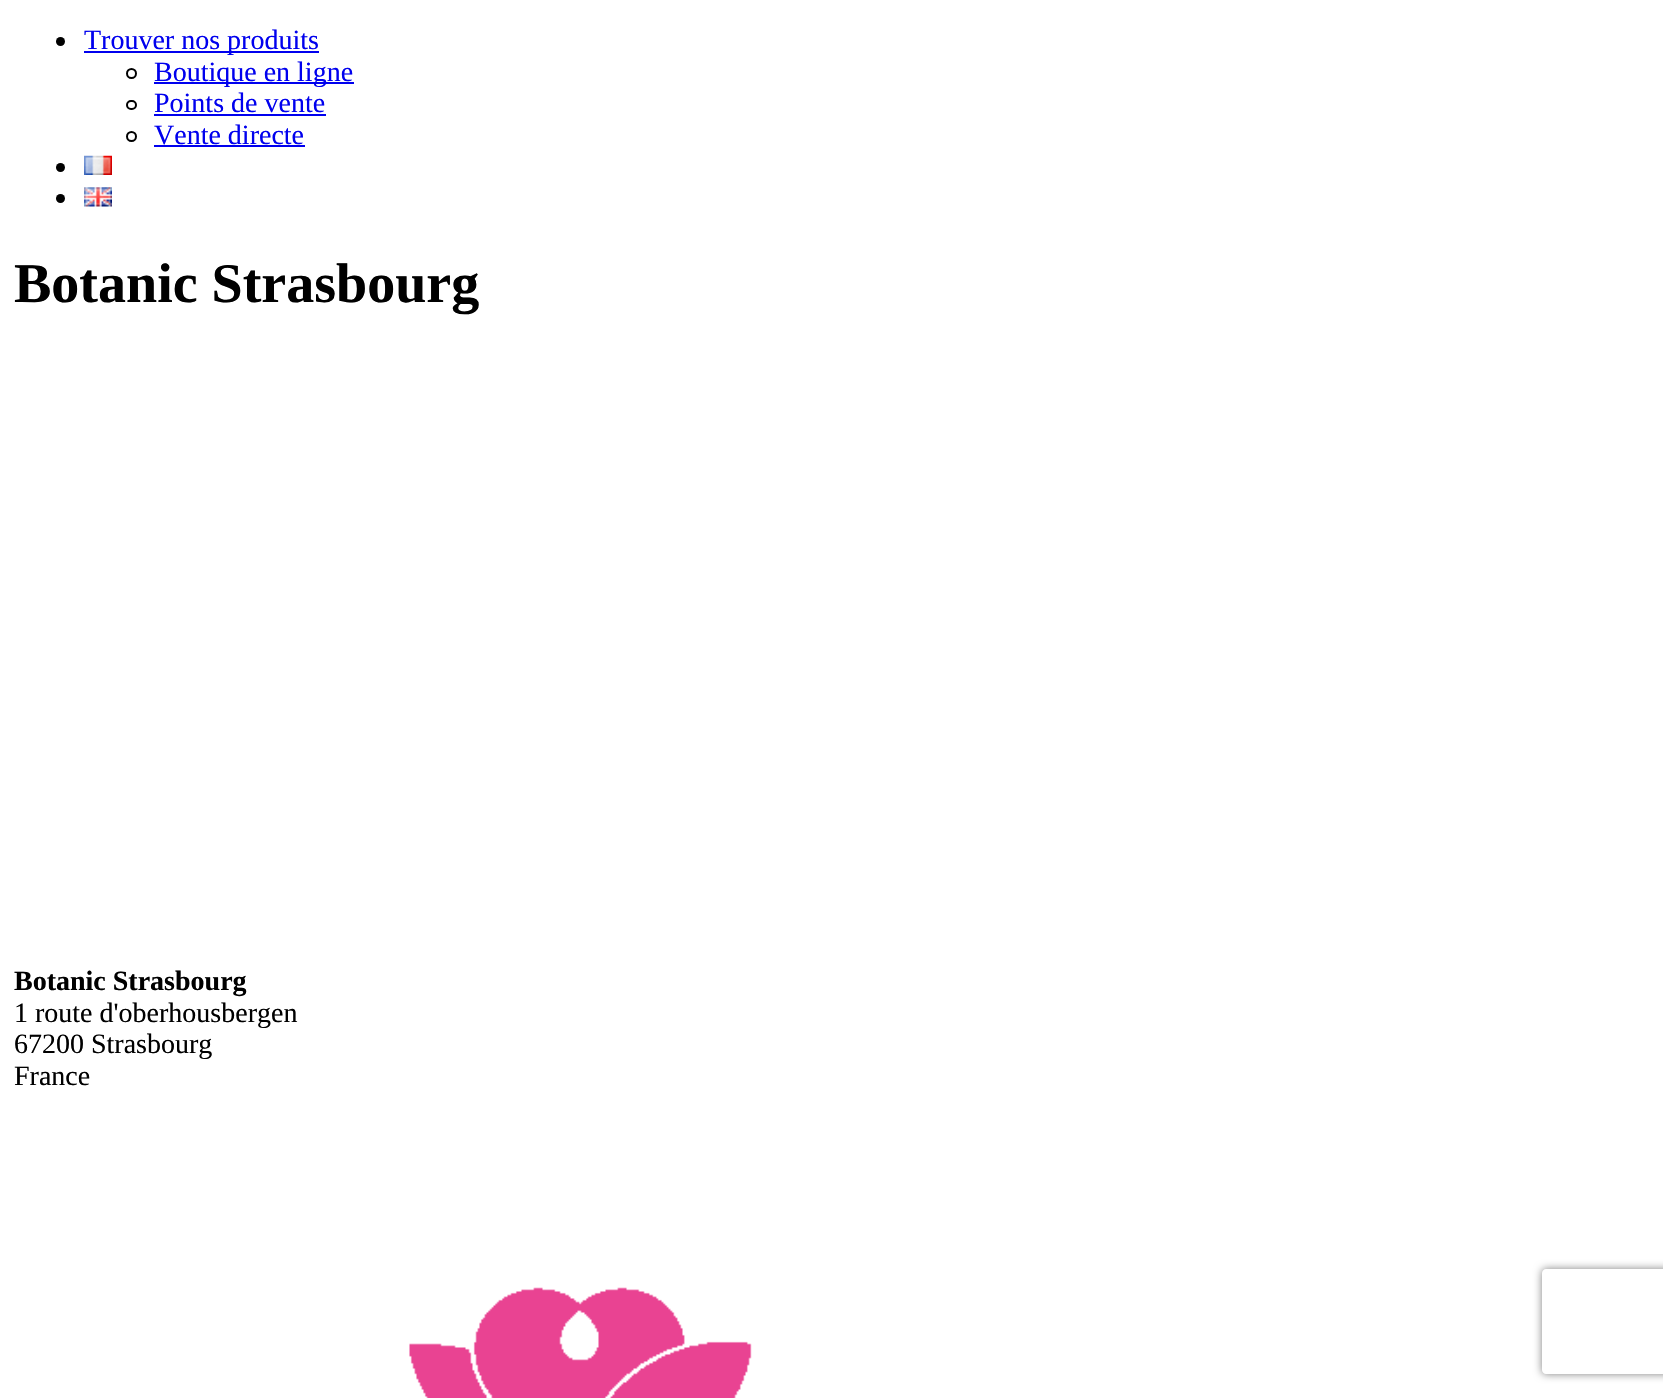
#include "include/core/SkBlurTypes.h"
#include "include/core/SkCanvas.h"
#include "include/core/SkData.h"
#include "include/core/SkFont.h"
#include "include/core/SkFontMgr.h"
#include "include/core/SkImage.h"
#include "include/core/SkMaskFilter.h"
#include "include/core/SkPaint.h"
#include "include/core/SkPathBuilder.h"
#include "include/core/SkTextBlob.h"
#include "include/effects/SkDashPathEffect.h"
#include "include/effects/SkGradientShader.h"
#include "include/utils/SkParsePath.h"

extern sk_sp<SkFontMgr> fontMgr;

void draw(SkCanvas* canvas) {
    SkPaint p;
    p.setAntiAlias(true);
    auto font = [&](const char* family, int weight, float size, bool italic = false) {
        SkFontStyle style(weight, SkFontStyle::kNormal_Width,
            italic ? SkFontStyle::kItalic_Slant : SkFontStyle::kUpright_Slant);
        SkFont result(fontMgr->matchFamilyStyle(family, style), size);
        result.setSubpixel(true);
        return result;
    };
    auto drawPhoto = [&](const char* path, float l, float t, float r, float b) {
        auto image = SkImages::DeferredFromEncodedData(SkData::MakeFromFileName(path));
        canvas->drawImageRect(image, SkRect::MakeLTRB(l, t, r, b), SkSamplingOptions());
    };
    canvas->clear(0xFFFFFFFF);
    p.setColor(0xFF000000);
    canvas->drawCircle(60.5f, 41.5f, 4.5f, p);
    p.setColor(0xFF0000EE);
    canvas->drawRect(SkRect::MakeLTRB(84, 51, 319, 53), p);
    auto font1 = font("Liberation Serif", 400, 28);
    canvas->drawString("Trouver nos produits", 84, 49, font1, p);
    p.setStyle(SkPaint::kStroke_Style);
    p.setStrokeWidth(2);
    p.setColor(0xFF000000);
    canvas->drawCircle(131.5f, 73.5f, 4.5f, p);
    p.setStyle(SkPaint::kFill_Style);
    p.setColor(0xFF0000EE);
    canvas->drawRect(SkRect::MakeLTRB(154, 82, 354, 84), p);
    canvas->drawString("Boutique en ligne", 154, 81, font1, p);
    p.setStyle(SkPaint::kStroke_Style);
    p.setColor(0xFF000000);
    canvas->drawRoundRect(SkRect::MakeLTRB(127, 101, 136, 109), 4, 4, p);
    p.setStyle(SkPaint::kFill_Style);
    p.setColor(0xFF0000EE);
    canvas->drawString("Points de vente", 154, 112, font1, p);
    canvas->drawRect(SkRect::MakeLTRB(154, 114, 326, 116), p);
    p.setStyle(SkPaint::kStroke_Style);
    p.setColor(0xFF000000);
    canvas->drawCircle(131.5f, 136.5f, 4.5f, p);
    p.setStyle(SkPaint::kFill_Style);
    p.setColor(0xFF0000EE);
    canvas->drawString("Vente directe", 154, 144, font1, p);
    canvas->drawRect(SkRect::MakeLTRB(154, 145, 305, 147), p);
    p.setColor(0xFF000000);
    canvas->drawCircle(60.5f, 167.5f, 4.5f, p);
    drawPhoto("media/1.png", 84, 155, 112, 175);
    canvas->drawCircle(60.5f, 198.5f, 4.5f, p);
    drawPhoto("media/2.png", 84, 187, 112, 207);
    auto font2 = font("Liberation Serif", 700, 56);
    canvas->drawString("Botanic Strasbourg", 14, 302, font2, p);
    auto font3 = font("Liberation Serif", 700, 28);
    canvas->drawString("Botanic Strasbourg", 14, 990, font3, p);
    {
        const struct { const char* s; float x, y; } items[] = {
            {"1 route d'oberhousbergen", 14, 1022},
            {"67200 Strasbourg", 14, 1053},
            {"France", 14, 1085},
        };
        for (auto [s, x, y] : items) {
            canvas->drawString(s, x, y, font1, p);
        }
    }
    drawPhoto("media/3.png", 409, 1287, 752, 1398);
    canvas->save();
    canvas->clipPath(SkPathBuilder(SkPathFillType::kEvenOdd).moveTo(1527, 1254).lineTo(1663, 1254).lineTo(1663, 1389).lineTo(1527, 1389).close().moveTo(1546, 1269).lineTo(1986, 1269).cubicTo(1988, 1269, 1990, 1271, 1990, 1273).lineTo(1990, 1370).cubicTo(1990, 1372, 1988, 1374, 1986, 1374).lineTo(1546, 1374).cubicTo(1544, 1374, 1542, 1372, 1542, 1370).lineTo(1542, 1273).cubicTo(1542, 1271, 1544, 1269, 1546, 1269).close().detach(), true);
    p.setColor(0xFF808080);
    p.setMaskFilter(SkMaskFilter::MakeBlur(kNormal_SkBlurStyle, 4.5f));
    canvas->drawRoundRect(SkRect::MakeLTRB(1542, 1269, 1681, 1374), 4, 4, p);
    p.setMaskFilter(nullptr);
    canvas->restore();
}
